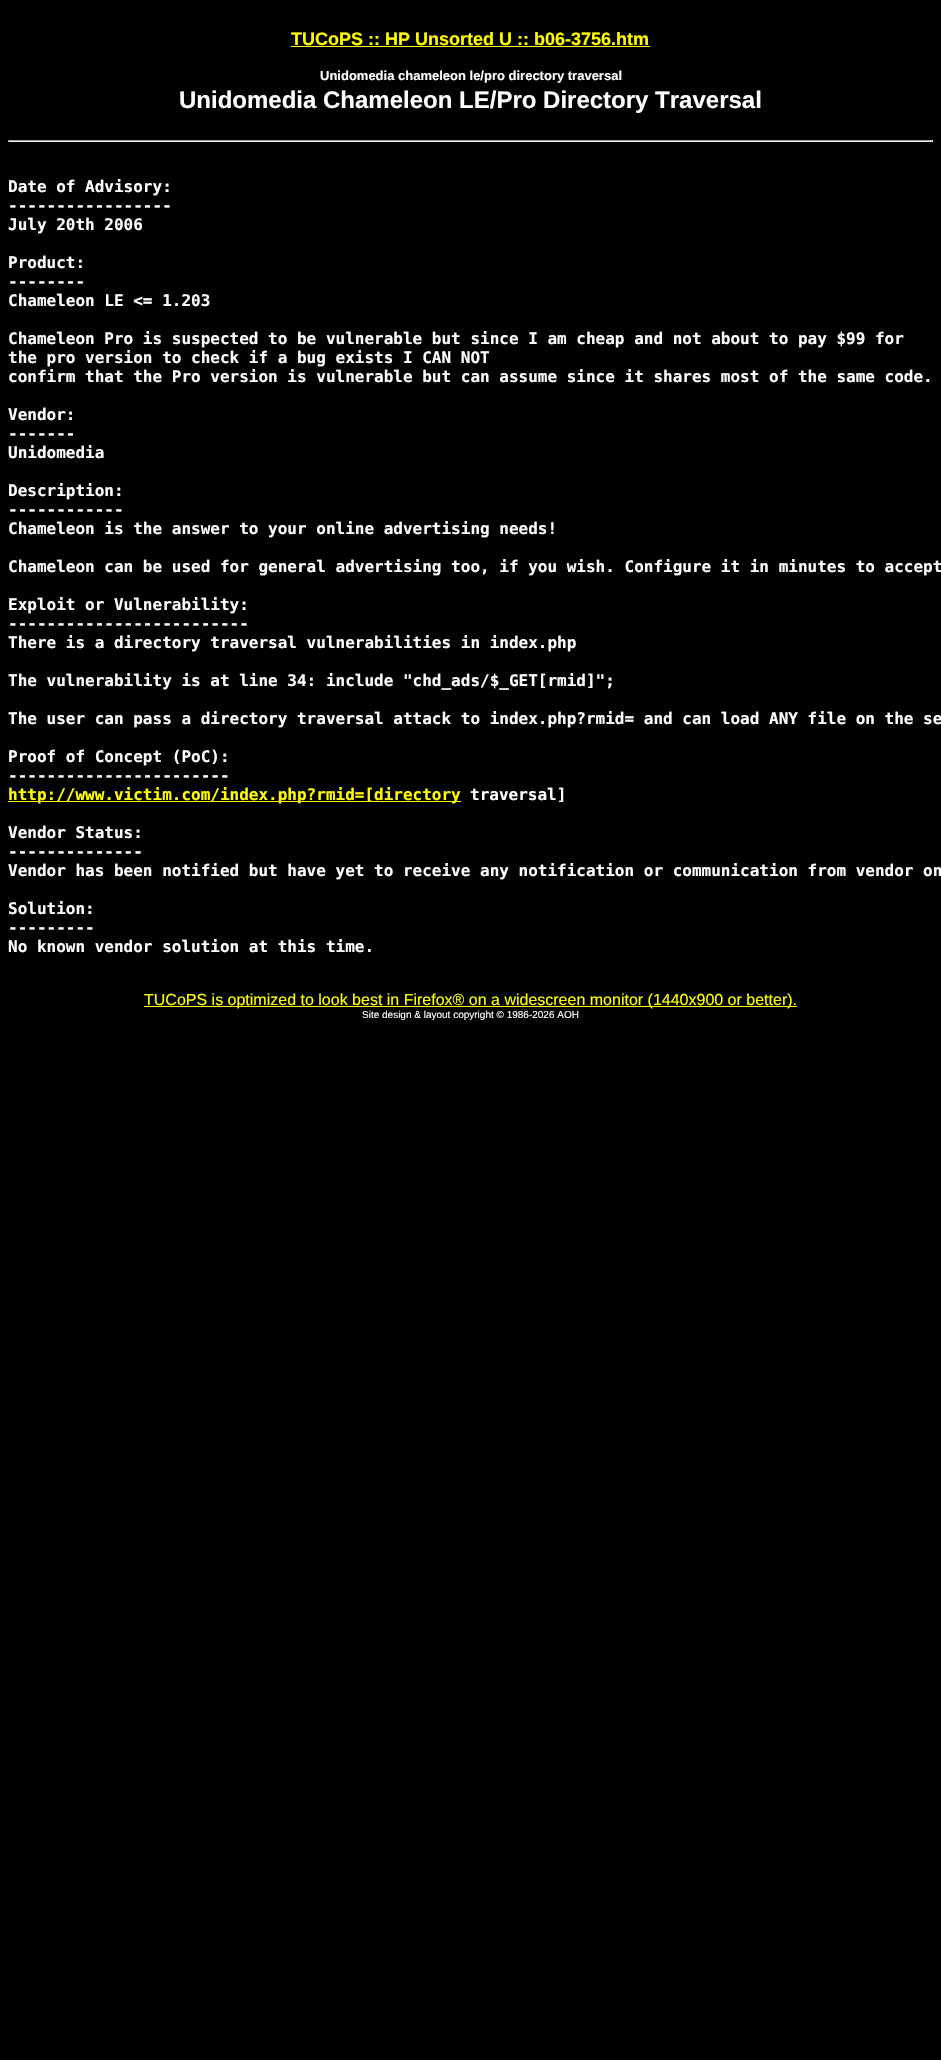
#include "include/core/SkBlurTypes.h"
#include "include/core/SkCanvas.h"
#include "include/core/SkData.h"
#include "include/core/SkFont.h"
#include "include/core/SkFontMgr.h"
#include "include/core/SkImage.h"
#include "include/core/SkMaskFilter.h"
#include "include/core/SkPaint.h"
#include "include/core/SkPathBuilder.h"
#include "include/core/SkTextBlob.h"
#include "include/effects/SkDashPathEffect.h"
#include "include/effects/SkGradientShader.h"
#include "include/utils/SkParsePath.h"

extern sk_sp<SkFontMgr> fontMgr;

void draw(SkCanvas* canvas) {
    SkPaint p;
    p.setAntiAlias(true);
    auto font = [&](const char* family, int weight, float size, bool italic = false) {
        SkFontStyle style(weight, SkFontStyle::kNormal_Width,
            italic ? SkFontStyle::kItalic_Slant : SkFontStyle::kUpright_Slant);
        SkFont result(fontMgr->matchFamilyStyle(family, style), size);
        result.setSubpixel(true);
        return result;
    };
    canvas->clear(0xFF000000);
    auto font1 = font("Liberation Sans", 700, 18);
    p.setColor(0xFFFFFF00);
    canvas->drawString("TUCoPS :: HP Unsorted U :: b06-3756.htm", 291, 45, font1, p);
    canvas->drawRect(SkRect::MakeLTRB(291, 46, 650, 47), p);
    auto font2 = font("Liberation Sans", 700, 13);
    p.setColor(0xFFFFFFFF);
    canvas->drawString("Unidomedia chameleon le/pro directory traversal", 320, 80, font2, p);
    auto font3 = font("Liberation Sans", 700, 24);
    canvas->drawString("Unidomedia Chameleon LE/Pro Directory Traversal", 179, 108, font3, p);
    {
        const struct { float l, t, r, b; SkColor color; } items[] = {
            {8, 140, 933, 141, 0xFF9F9F9F},
            {932, 140, 933, 142, 0xFFEEEEEE},
            {8, 141, 933, 142, 0xFFEEEEEE},
            {8, 140, 9, 142, 0xFF9F9F9F},
        };
        for (auto [l, t, r, b, color] : items) {
            p.setColor(color);
            canvas->drawRect(SkRect::MakeLTRB(l, t, r, b), p);
        }
    }
    auto font4 = font("DejaVu Sans Mono", 700, 16);
    p.setColor(0xFFFFFFFF);
    {
        const struct { const char* s; float x, y; } items[] = {
            {"Date of Advisory:", 8, 192},
            {"-----------------", 8, 211},
            {"July 20th 2006", 8, 230},
            {"Product:", 8, 268},
            {"--------", 8, 287},
            {"Chameleon LE <= 1.203", 8, 306},
            {"Chameleon Pro is suspected to be vulnerable but since I am cheap and not about to pay $99 for", 8, 344},
            {"the pro version to check if a bug exists I CAN NOT", 8, 363},
            {"confirm that the Pro version is vulnerable but can assume since it shares most of the same code.", 8, 382},
            {"Vendor:", 8, 420},
            {"-------", 8, 439},
            {"Unidomedia", 8, 458},
            {"Description:", 8, 496},
            {"------------", 8, 515},
            {"Chameleon is the answer to your online advertising needs!", 8, 534},
            {"Chameleon can be used for general advertising too, if you wish. Configure it in minutes to accept", 8, 572},
            {"Exploit or Vulnerability:", 8, 610},
            {"-------------------------", 8, 629},
            {"There is a directory traversal vulnerabilities in index.php", 8, 648},
            {"The vulnerability is at line 34: include \"chd_ads/$_GET[rmid]\";", 8, 686},
            {"The user can pass a directory traversal attack to index.php?rmid= and can load ANY file on the se", 8, 724},
            {"Proof of Concept (PoC):", 8, 762},
            {"-----------------------", 8, 781},
        };
        for (auto [s, x, y] : items) {
            canvas->drawString(s, x, y, font4, p);
        }
    }
    p.setColor(0xFFFFFF00);
    canvas->drawRect(SkRect::MakeLTRB(8, 801, 461, 802), p);
    canvas->drawString("http://www.victim.com/index.php?rmid=[directory", 8, 800, font4, p);
    p.setColor(0xFFFFFFFF);
    {
        const struct { const char* s; float x, y; } items[] = {
            {"traversal]", 470, 800},
            {"Vendor Status:", 8, 838},
            {"--------------", 8, 857},
            {"Vendor has been notified but have yet to receive any notification or communication from vendor on", 8, 876},
            {"Solution:", 8, 914},
            {"---------", 8, 933},
            {"No known vendor solution at this time.", 8, 952},
        };
        for (auto [s, x, y] : items) {
            canvas->drawString(s, x, y, font4, p);
        }
    }
    p.setColor(0xFFFFFF00);
    canvas->drawRect(SkRect::MakeLTRB(144, 1006, 797, 1007), p);
    auto font5 = font("Liberation Sans", 400, 16);
    canvas->drawString("TUCoPS is optimized to look best in Firefox® on a widescreen monitor (1440x900 or better).", 144, 1005, font5, p);
    auto font6 = font("Liberation Sans", 400, 10);
    p.setColor(0xFFFFFFFF);
    canvas->drawString("Site design & layout copyright © 1986-2026 AOH", 362, 1018, font6, p);
}
